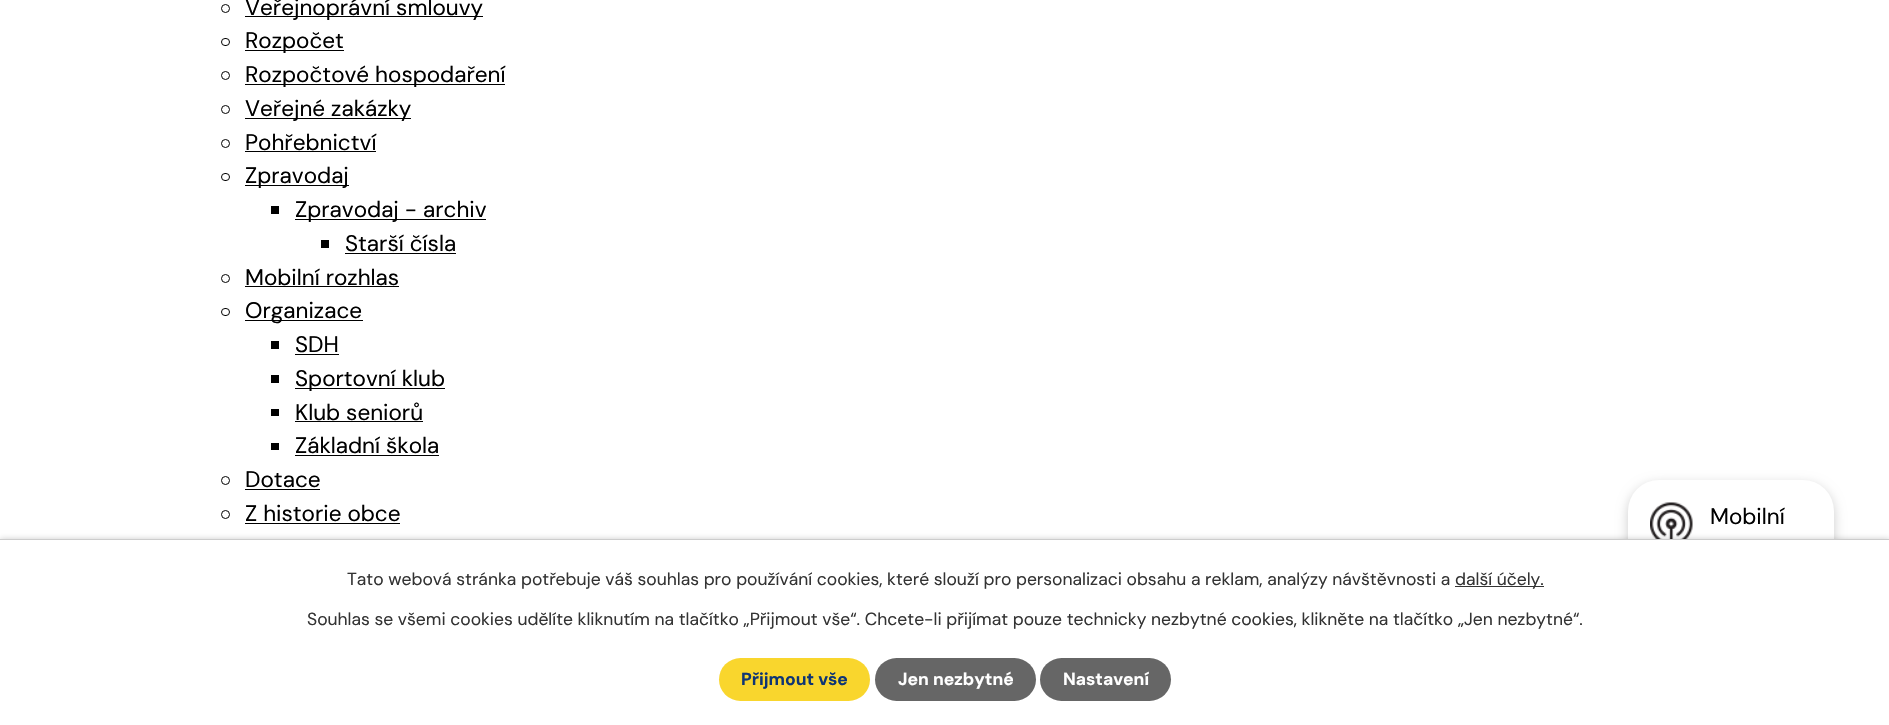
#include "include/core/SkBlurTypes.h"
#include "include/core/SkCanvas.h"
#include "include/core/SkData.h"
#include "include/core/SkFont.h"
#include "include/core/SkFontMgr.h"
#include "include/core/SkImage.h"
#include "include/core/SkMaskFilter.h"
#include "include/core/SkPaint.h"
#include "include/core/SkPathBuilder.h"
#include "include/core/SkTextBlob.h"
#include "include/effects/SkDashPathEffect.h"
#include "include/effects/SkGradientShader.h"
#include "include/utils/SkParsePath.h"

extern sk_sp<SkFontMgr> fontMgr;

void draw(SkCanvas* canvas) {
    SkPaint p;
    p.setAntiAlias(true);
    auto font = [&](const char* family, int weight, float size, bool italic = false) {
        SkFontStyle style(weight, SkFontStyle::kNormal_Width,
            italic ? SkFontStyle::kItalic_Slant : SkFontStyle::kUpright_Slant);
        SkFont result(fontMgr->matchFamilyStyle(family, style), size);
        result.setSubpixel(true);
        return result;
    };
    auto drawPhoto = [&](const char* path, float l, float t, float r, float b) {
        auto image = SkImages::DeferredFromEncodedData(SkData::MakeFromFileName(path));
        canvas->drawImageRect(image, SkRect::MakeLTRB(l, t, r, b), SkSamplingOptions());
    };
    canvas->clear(0xFFFFFFFF);
    p.setStyle(SkPaint::kStroke_Style);
    p.setStrokeWidth(1);
    p.setColor(0xFF000000);
    canvas->drawCircle(225.5f, 8.5f, 4, p);
    p.setStyle(SkPaint::kFill_Style);
    canvas->drawRect(SkRect::MakeLTRB(245, 16, 483, 17), p);
    auto font1 = font("DM Sans", 400, 22.5f);
    canvas->drawString("Veřejnoprávní smlouvy", 245, 15, font1, p);
    p.setStyle(SkPaint::kStroke_Style);
    canvas->drawRoundRect(SkRect::MakeLTRB(221.5f, 38.5f, 229.5f, 45.5f), 3.5f, 3.5f, p);
    p.setStyle(SkPaint::kFill_Style);
    canvas->drawRect(SkRect::MakeLTRB(245, 50, 344, 51), p);
    canvas->drawString("Rozpočet", 245, 48, font1, p);
    p.setStyle(SkPaint::kStroke_Style);
    canvas->drawCircle(225.5f, 75.5f, 4, p);
    p.setStyle(SkPaint::kFill_Style);
    canvas->drawRect(SkRect::MakeLTRB(245, 84, 505, 85), p);
    canvas->drawString("Rozpočtové hospodaření", 245, 82, font1, p);
    p.setStyle(SkPaint::kStroke_Style);
    canvas->drawCircle(225.5f, 109.5f, 4, p);
    p.setStyle(SkPaint::kFill_Style);
    canvas->drawRect(SkRect::MakeLTRB(245, 118, 411, 119), p);
    canvas->drawString("Veřejné zakázky", 245, 116, font1, p);
    p.setStyle(SkPaint::kStroke_Style);
    canvas->drawCircle(225.5f, 143.5f, 4, p);
    p.setStyle(SkPaint::kFill_Style);
    canvas->drawString("Pohřebnictví", 245, 150, font1, p);
    canvas->drawRect(SkRect::MakeLTRB(245, 151, 376, 152), p);
    p.setStyle(SkPaint::kStroke_Style);
    canvas->drawRoundRect(SkRect::MakeLTRB(221.5f, 173.5f, 229.5f, 180.5f), 3.5f, 3.5f, p);
    p.setStyle(SkPaint::kFill_Style);
    canvas->drawRect(SkRect::MakeLTRB(245, 185, 349, 186), p);
    canvas->drawString("Zpravodaj", 245, 183, font1, p);
    canvas->drawRect(SkRect::MakeLTRB(271, 206, 279, 214), p);
    canvas->drawRect(SkRect::MakeLTRB(295, 219, 486, 220), p);
    canvas->drawString("Zpravodaj - archiv", 295, 217, font1, p);
    canvas->drawRect(SkRect::MakeLTRB(321, 240, 329, 248), p);
    canvas->drawString("Starší čísla", 345, 251, font1, p);
    canvas->drawRect(SkRect::MakeLTRB(345, 253, 456, 254), p);
    p.setStyle(SkPaint::kStroke_Style);
    canvas->drawCircle(225.5f, 278.5f, 4, p);
    p.setStyle(SkPaint::kFill_Style);
    canvas->drawString("Mobilní rozhlas", 245, 285, font1, p);
    canvas->drawRect(SkRect::MakeLTRB(245, 286, 399, 287), p);
    p.setStyle(SkPaint::kStroke_Style);
    canvas->drawRoundRect(SkRect::MakeLTRB(221.5f, 308.5f, 229.5f, 315.5f), 3.5f, 3.5f, p);
    p.setStyle(SkPaint::kFill_Style);
    canvas->drawRect(SkRect::MakeLTRB(245, 320, 363, 321), p);
    canvas->drawString("Organizace", 245, 318, font1, p);
    canvas->drawRect(SkRect::MakeLTRB(271, 341, 279, 349), p);
    canvas->drawString("SDH", 295, 352, font1, p);
    {
        const struct { float l, t, r, b; SkColor color; } items[] = {
            {295, 354, 339, 355, 0xFF000000},
            {271, 375, 279, 383, 0xFF000000},
            {295, 388, 445, 389, 0xFF000000},
        };
        for (auto [l, t, r, b, color] : items) {
            p.setColor(color);
            canvas->drawRect(SkRect::MakeLTRB(l, t, r, b), p);
        }
    }
    canvas->drawString("Sportovní klub", 295, 386, font1, p);
    canvas->drawRect(SkRect::MakeLTRB(271, 409, 279, 416), p);
    canvas->drawString("Klub seniorů", 295, 420, font1, p);
    canvas->drawRect(SkRect::MakeLTRB(295, 421, 423, 422), p);
    canvas->drawRect(SkRect::MakeLTRB(271, 443, 279, 450), p);
    canvas->drawString("Základní škola", 295, 453, font1, p);
    canvas->drawRect(SkRect::MakeLTRB(295, 455, 439, 456), p);
    p.setStyle(SkPaint::kStroke_Style);
    canvas->drawCircle(225.5f, 480.5f, 4, p);
    p.setStyle(SkPaint::kFill_Style);
    canvas->drawString("Dotace", 245, 487, font1, p);
    canvas->drawRect(SkRect::MakeLTRB(245, 489, 320, 490), p);
    p.setStyle(SkPaint::kStroke_Style);
    canvas->drawCircle(225.5f, 514.5f, 4, p);
    p.setStyle(SkPaint::kFill_Style);
    canvas->drawString("Z historie obce", 245, 521, font1, p);
    canvas->drawRect(SkRect::MakeLTRB(245, 523, 400, 524), p);
    p.setColor(0x33000000);
    p.setMaskFilter(SkMaskFilter::MakeBlur(kNormal_SkBlurStyle, 6));
    canvas->drawRoundRect(SkRect::MakeLTRB(1628, 484, 1834, 673), 31, 31, p);
    p.setMaskFilter(nullptr);
    p.setColor(0xFFFFFFFF);
    canvas->drawRoundRect(SkRect::MakeLTRB(1628, 480, 1834, 669), 31, 31, p);
    drawPhoto("media/1.png", 1650, 502, 1693, 539);
    p.setColor(0xFF000000);
    canvas->drawString("Mobilní", 1710, 524, font1, p);
    p.setColor(0x33000000);
    p.setMaskFilter(SkMaskFilter::MakeBlur(kNormal_SkBlurStyle, 3));
    canvas->drawRect(SkRect::MakeLTRB(0, 539, 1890, 725), p);
    p.setMaskFilter(nullptr);
    p.setColor(0xFFFFFFFF);
    canvas->drawRect(SkRect::MakeLTRB(0, 540, 1889, 725), p);
    p.setColor(0xFFCCCCCC);
    canvas->drawRect(SkRect::MakeLTRB(0, 539, 1889, 540), p);
    auto font2 = font("DM Sans", 400, 17.5f);
    p.setColor(0xFF333333);
    canvas->drawString("Tato webová stránka potřebuje váš souhlas pro používání cookies, které slouží pro personalizaci obsahu a reklam, analýzy návštěvnosti a", 347, 585, font2, p);
    canvas->drawRect(SkRect::MakeLTRB(1455, 586, 1544, 587), p);
    canvas->drawString("další účely.", 1455, 585, font2, p);
    canvas->drawString("Souhlas se všemi cookies udělíte kliknutím na tlačítko „Přijmout vše“. Chcete-li přijímat pouze technicky nezbytné cookies, klikněte na tlačítko „Jen nezbytné“.", 307, 625, font2, p);
    p.setColor(0xFFF9D62D);
    canvas->drawRoundRect(SkRect::MakeLTRB(719, 658, 870, 701), 21.5f, 21.5f, p);
    auto font3 = font("DM Sans", 700, 17.5f);
    p.setColor(0xFF0E3574);
    canvas->drawString("Přijmout vše", 741, 685, font3, p);
    p.setColor(0xFF666666);
    canvas->drawRoundRect(SkRect::MakeLTRB(875, 658, 1036, 701), 21.5f, 21.5f, p);
    p.setColor(0xFFFFFFFF);
    canvas->drawString("Jen nezbytné", 898, 685, font3, p);
    p.setColor(0xFF666666);
    canvas->drawRoundRect(SkRect::MakeLTRB(1040, 658, 1171, 701), 21.5f, 21.5f, p);
    p.setColor(0xFFFFFFFF);
    canvas->drawString("Nastavení", 1063, 685, font3, p);
}
